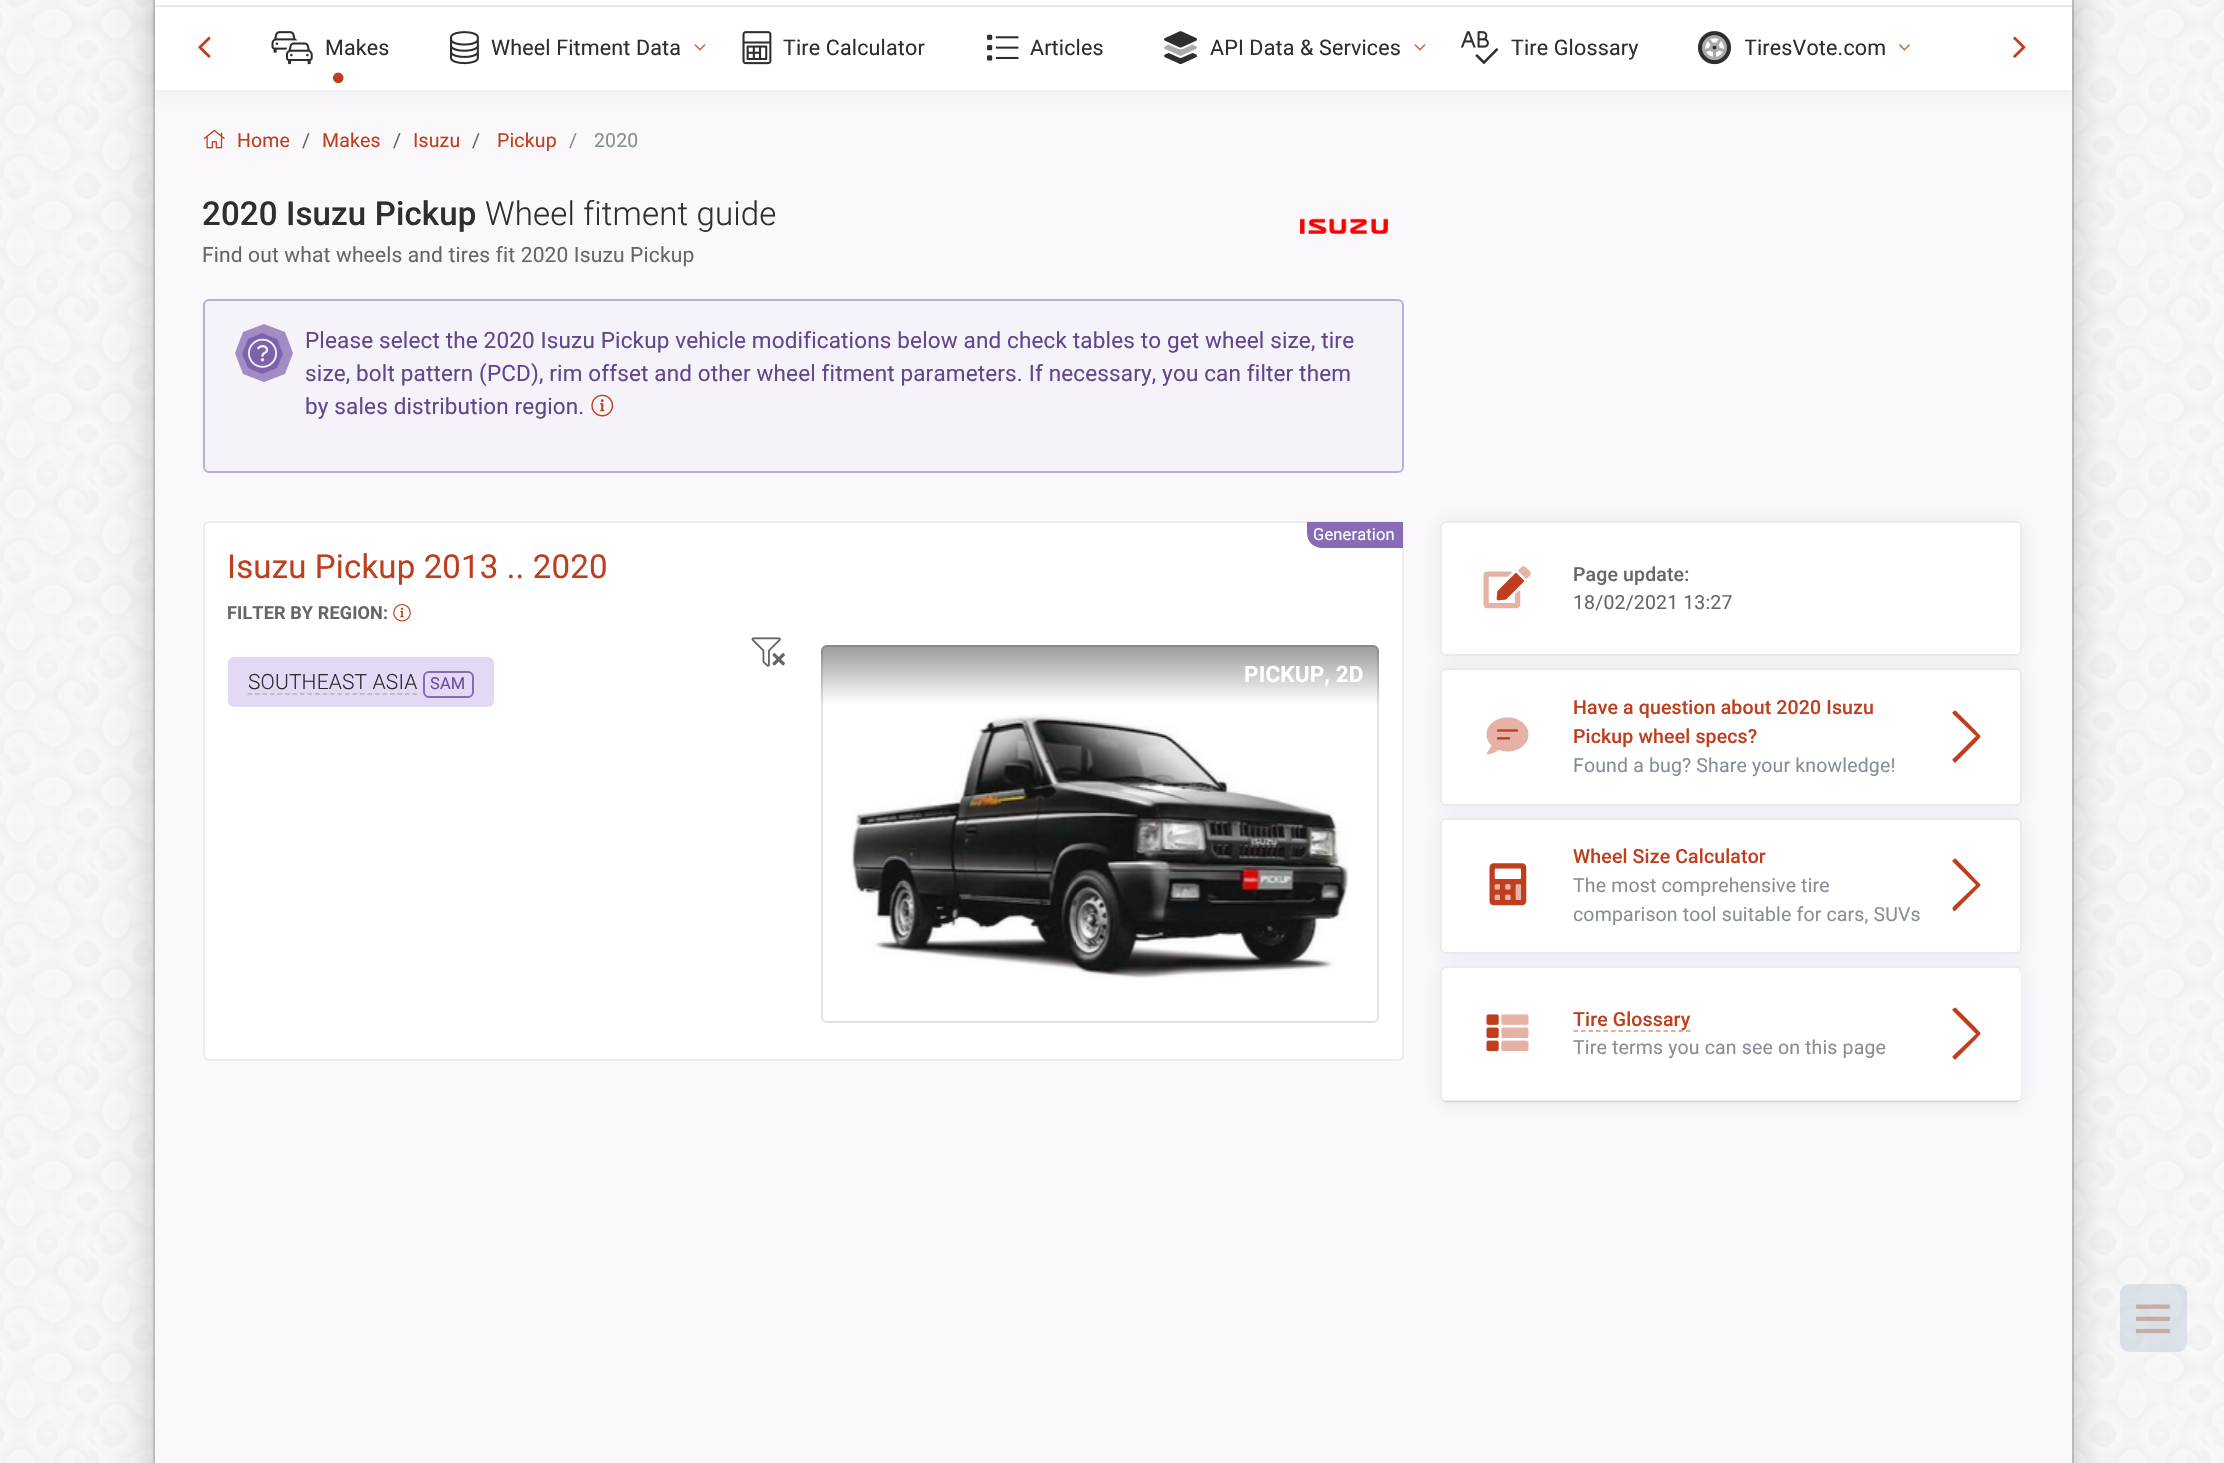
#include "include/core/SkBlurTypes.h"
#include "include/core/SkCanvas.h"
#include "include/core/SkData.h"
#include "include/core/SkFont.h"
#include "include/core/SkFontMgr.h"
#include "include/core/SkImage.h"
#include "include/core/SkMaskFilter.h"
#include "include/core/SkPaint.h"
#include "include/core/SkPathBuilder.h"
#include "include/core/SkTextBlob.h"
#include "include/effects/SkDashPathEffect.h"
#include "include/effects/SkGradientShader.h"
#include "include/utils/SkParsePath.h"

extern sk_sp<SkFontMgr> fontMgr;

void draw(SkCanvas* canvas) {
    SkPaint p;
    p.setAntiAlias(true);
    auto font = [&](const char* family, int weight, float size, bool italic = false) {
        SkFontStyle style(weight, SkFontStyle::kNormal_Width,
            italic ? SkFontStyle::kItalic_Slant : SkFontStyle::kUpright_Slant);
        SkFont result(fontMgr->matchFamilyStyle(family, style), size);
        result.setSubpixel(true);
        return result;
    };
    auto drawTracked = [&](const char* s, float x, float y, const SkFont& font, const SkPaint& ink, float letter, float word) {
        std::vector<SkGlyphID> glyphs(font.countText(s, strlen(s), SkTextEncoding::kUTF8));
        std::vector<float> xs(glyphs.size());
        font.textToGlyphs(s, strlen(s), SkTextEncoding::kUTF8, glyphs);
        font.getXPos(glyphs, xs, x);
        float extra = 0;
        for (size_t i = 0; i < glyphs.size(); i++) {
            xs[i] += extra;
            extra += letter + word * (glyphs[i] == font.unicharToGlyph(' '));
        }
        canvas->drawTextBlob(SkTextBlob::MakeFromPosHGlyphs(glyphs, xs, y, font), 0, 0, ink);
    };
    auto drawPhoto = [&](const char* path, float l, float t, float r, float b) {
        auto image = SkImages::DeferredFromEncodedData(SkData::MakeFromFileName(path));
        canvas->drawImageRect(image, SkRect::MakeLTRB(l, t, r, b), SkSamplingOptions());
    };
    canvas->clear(0xFFFFFFFF);
    drawPhoto("media/1.png", 0, 0, 2224, 1463);
    p.setColor(0x1A000000);
    p.setMaskFilter(SkMaskFilter::MakeBlur(kNormal_SkBlurStyle, 15));
    canvas->drawRect(SkRect::MakeLTRB(146, -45, 2066, 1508), p);
    p.setMaskFilter(nullptr);
    p.setMaskFilter(SkMaskFilter::MakeBlur(kNormal_SkBlurStyle, 15));
    canvas->drawRect(SkRect::MakeLTRB(161, -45, 2081, 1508), p);
    p.setMaskFilter(nullptr);
    {
        const struct { float l, t, r, b; SkColor color; } items[] = {
            {2072, 0, 2074, 1463, 0x26000000},
            {153, 0, 155, 1463, 0x26000000},
            {155, 90, 2072, 1463, 0xFFFAF8FB},
        };
        for (auto [l, t, r, b, color] : items) {
            p.setColor(color);
            canvas->drawRect(SkRect::MakeLTRB(l, t, r, b), p);
        }
    }
    p.setColor(0x12000000);
    p.setMaskFilter(SkMaskFilter::MakeBlur(kNormal_SkBlurStyle, 7.5f));
    canvas->drawRect(SkRect::MakeLTRB(155, 6, 2072, 90), p);
    p.setMaskFilter(nullptr);
    p.setColor(0xFFFFFFFF);
    canvas->drawRect(SkRect::MakeLTRB(155, 7, 2072, 90), p);
    drawPhoto("media/2.png", 198, 36, 211, 58);
    drawPhoto("media/3.png", 271, 31, 313, 65);
    auto font1 = font("Roboto", 400, 21.5f);
    p.setColor(0xFF2E2E2E);
    drawTracked("Makes", 325, 55, font1, p, 0.15f, 0);
    drawPhoto("media/4.png", 333, 72, 344, 84);
    drawPhoto("media/5.png", 450, 31, 479, 65);
    drawTracked("Wheel Fitment Data", 491, 55, font1, p, 0.15f, 0);
    drawPhoto("media/6.png", 694, 44, 706, 51);
    drawPhoto("media/7.png", 742, 31, 772, 65);
    drawTracked("Tire Calculator", 783, 55, font1, p, 0.15f, 0);
    drawPhoto("media/8.png", 987, 34, 1019, 61);
    drawTracked("Articles", 1030, 55, font1, p, 0.15f, 0);
    drawPhoto("media/9.png", 1164, 31, 1197, 65);
    p.setColor(0xFFABABAB);
    canvas->drawPath(SkPathBuilder().moveTo(1165, 46.5f).lineTo(1168.5f, 44.5f).cubicTo(1183, 51, 1178, 51, 1192.5f, 44.5f).cubicTo(1199.5f, 48, 1198.5f, 48, 1191.5f, 51).lineTo(1180.5f, 56).lineTo(1167.5f, 50).cubicTo(1166, 49.5f, 1164, 49, 1164, 47.5f).close().detach(), p);
    p.setColor(0xFF2E2E2E);
    drawTracked("API Data & Services", 1210, 55, font1, p, 0.15f, 0);
    drawPhoto("media/6.png", 1414, 44, 1426, 51);
    drawPhoto("media/10.png", 1461, 31, 1499, 65);
    drawTracked("Tire Glossary", 1511, 55, font1, p, 0.15f, 0);
    drawPhoto("media/11.png", 1698, 31, 1731, 65);
    drawPhoto("media/12.png", 1702, 35, 1727, 60);
    canvas->save();
    canvas->clipRect(SkRect::MakeLTRB(1745, 36, 1887, 62));
    drawTracked("TiresVote.com", 1744, 55, font1, p, 0.15f, 0);
    canvas->restore();
    drawPhoto("media/13.png", 1899, 44, 1910, 51);
    drawPhoto("media/14.png", 2013, 36, 2026, 58);
    p.setColor(0xFFFFFFFF);
    canvas->drawRect(SkRect::MakeLTRB(155, 0, 2072, 5), p);
    p.setColor(0xFFEAEAEA);
    canvas->drawRect(SkRect::MakeLTRB(155, 5, 2072, 7), p);
    drawPhoto("media/15.png", 203, 129, 225, 149);
    auto font2 = font("Roboto", 400, 19.5f);
    p.setColor(0xFFBE3E1D);
    drawTracked("Home", 237, 147, font2, p, 0.15f, 0);
    p.setColor(0xFF666666);
    drawTracked("/", 302, 147, font2, p, 0.15f, 0);
    p.setColor(0xFFBE3E1D);
    drawTracked("Makes", 322, 147, font2, p, 0.15f, 0);
    p.setColor(0xFF666666);
    drawTracked("/", 393, 147, font2, p, 0.15f, 0);
    p.setColor(0xFFBE3E1D);
    drawTracked("Isuzu", 413, 147, font2, p, 0.15f, 0);
    p.setColor(0xFF666666);
    drawTracked("/", 472, 147, font2, p, 0.15f, 0);
    p.setColor(0xFFBE3E1D);
    drawTracked("Pickup", 497, 147, font2, p, 0.15f, 0);
    p.setColor(0xFF868E96);
    drawTracked("/", 569, 147, font2, p, 0.15f, 0);
    drawTracked("2020", 594, 147, font2, p, 0.15f, 0);
    auto font3 = font("Roboto", 500, 33);
    p.setColor(0xFF2E2E2E);
    drawTracked("2020 Isuzu Pickup", 202, 225, font3, p, 0.15f, 0);
    auto font4 = font("Roboto", 300, 33);
    drawTracked("Wheel fitment guide", 485, 225, font4, p, 0.15f, 0);
    auto font5 = font("Roboto", 400, 21);
    p.setColor(0xFF666666);
    drawTracked("Find out what wheels and tires fit 2020 Isuzu Pickup", 202, 262, font5, p, 0.15f, 0);
    drawPhoto("media/16.png", 1300, 218, 1388, 234);
    p.setColor(0xFFF5F2F9);
    canvas->drawRoundRect(SkRect::MakeLTRB(204, 300, 1403, 472), 5, 5, p);
    p.setStyle(SkPaint::kStroke_Style);
    p.setStrokeWidth(2);
    p.setColor(0xFFBEAED7);
    canvas->drawRoundRect(SkRect::MakeLTRB(204, 300, 1403, 472), 5, 5, p);
    p.setStyle(SkPaint::kFill_Style);
    p.setColor(0xFFA38CC6);
    canvas->drawPath(SkPathBuilder().moveTo(243, 374).lineTo(235, 353).lineTo(243, 332).lineTo(264, 324).lineTo(285, 332).lineTo(293, 353).lineTo(285, 374).lineTo(264, 382).close().detach(), p);
    p.setColor(0xFF7E61AA);
    canvas->drawPath(SkPathBuilder().moveTo(248, 368).lineTo(242, 354).lineTo(248, 339).lineTo(262, 333).lineTo(277, 339).lineTo(283, 354).lineTo(277, 368).lineTo(262, 374).close().detach(), p);
    drawPhoto("media/17.png", 248, 338, 277, 368);
    auto font6 = font("Roboto", 400, 22.5f);
    p.setColor(0xFF62468D);
    {
        const struct { const char* s; float x, y; } items[] = {
            {"Please select the 2020 Isuzu Pickup vehicle modifications below and check tables to get wheel size, tire", 305, 348},
            {"size, bolt pattern (PCD), rim offset and other wheel fitment parameters. If necessary, you can filter them", 305, 381},
            {"by sales distribution region.", 305, 414},
        };
        for (auto [s, x, y] : items) {
            drawTracked(s, x, y, font6, p, 0.15f, 0);
        }
    }
    drawPhoto("media/18.png", 591, 394, 614, 417);
    p.setColor(0xFFFFFFFF);
    canvas->drawRoundRect(SkRect::MakeLTRB(204, 522, 1403, 1060), 5, 5, p);
    p.setStyle(SkPaint::kStroke_Style);
    p.setColor(0xFFEDEDED);
    canvas->drawRoundRect(SkRect::MakeLTRB(204, 522, 1403, 1060), 5, 5, p);
    p.setStyle(SkPaint::kFill_Style);
    p.setColor(0xFF886AB5);
    canvas->drawPath(SkPathBuilder().moveTo(1307, 522).lineTo(1403, 522).lineTo(1403, 548).lineTo(1322, 548).cubicTo(1313.5f, 548, 1307, 541.5f, 1307, 533).close().detach(), p);
    auto font7 = font("Roboto", 400, 16.5f);
    p.setColor(0xFFFFFFFF);
    drawTracked("Generation", 1313, 540, font7, p, 0.15f, 0);
    auto font8 = font("Roboto", 400, 33);
    p.setColor(0xFFBE3E1D);
    drawTracked("Isuzu Pickup 2013 .. 2020", 227, 578, font8, p, 0.15f, 0);
    auto font9 = font("Roboto", 700, 18);
    p.setColor(0xFF666666);
    drawTracked("FILTER BY REGION:", 227, 619, font9, p, 0.15f, 0);
    drawPhoto("media/19.png", 393, 604, 411, 622);
    drawPhoto("media/20.png", 751, 637, 781, 667);
    drawPhoto("media/21.png", 772, 653, 785, 666);
    p.setColor(0xFFE4D9F5);
    canvas->drawRoundRect(SkRect::MakeLTRB(228, 657, 494, 707), 6, 6, p);
    auto font10 = font("Roboto", 300, 21);
    p.setColor(0xFF2E2E2E);
    drawTracked("SOUTHEAST ASIA", 248, 689, font10, p, 0.15f, 0);
    p.setStyle(SkPaint::kStroke_Style);
    p.setStrokeWidth(1.5f);
    p.setColor(0xFFB4B4B4);
    p.setPathEffect(SkDashPathEffect::Make({{4.5f, 3}}, 0));
    canvas->drawPath(SkPathBuilder().moveTo(247.5f, 694).lineTo(417, 694).detach(), p);
    p.setPathEffect(nullptr);
    p.setStrokeWidth(2);
    p.setColor(0xFF886AB5);
    canvas->drawRoundRect(SkRect::MakeLTRB(424, 672, 473, 697), 5, 5, p);
    p.setStyle(SkPaint::kFill_Style);
    p.setColor(0xFF6E4E9E);
    drawTracked("SAM", 430, 689, font7, p, 0.15f, 0);
    p.setStyle(SkPaint::kStroke_Style);
    p.setColor(0xFFDEE2E6);
    canvas->drawRoundRect(SkRect::MakeLTRB(822, 646, 1378, 1022), 5, 5, p);
    drawPhoto("media/22.png", 851, 714, 1349, 978);
    p.setStyle(SkPaint::kFill_Style);
    {
        const SkColor colors[] = {0x66000000, 0x00000000};
        const float stops[] = {0, 1};
        const SkPoint ends[] = {{1100, 645}, {1100, 705}};
        p.setShader(SkGradientShader::MakeLinear(ends, colors, stops, 2, SkTileMode::kClamp));
        p.setAlpha(255);
    }
    canvas->drawRoundRect(SkRect::MakeLTRB(821, 645, 1379, 705), 6, 6, p);
    auto font11 = font("Roboto", 700, 22.5f);
    p.setShader(nullptr);
    p.setColor(0xFFFFFFFF);
    drawTracked("PICKUP, 2D", 1244, 682, font11, p, 0.15f, 0);
    p.setColor(0x144A356B);
    p.setMaskFilter(SkMaskFilter::MakeBlur(kNormal_SkBlurStyle, 10));
    canvas->drawRoundRect(SkRect::MakeLTRB(1440, 521, 2022, 656), 6, 6, p);
    p.setMaskFilter(nullptr);
    p.setColor(0xFFFFFFFF);
    canvas->drawRoundRect(SkRect::MakeLTRB(1441, 522, 2021, 655), 5, 5, p);
    p.setStyle(SkPaint::kStroke_Style);
    p.setColor(0xFFEBEBEB);
    canvas->drawRoundRect(SkRect::MakeLTRB(1441, 522, 2021, 655), 5, 5, p);
    drawPhoto("media/24.png", 1496, 572, 1525, 601);
    drawPhoto("media/23.png", 1483, 566, 1531, 609);
    auto font12 = font("Roboto", 500, 19.5f);
    p.setStyle(SkPaint::kFill_Style);
    p.setColor(0xFF666666);
    drawTracked("Page update:", 1573, 581, font12, p, 0.15f, 0);
    drawTracked("18/02/2021 13:27", 1573, 609, font2, p, 0.15f, 0);
    p.setColor(0x144A356B);
    p.setMaskFilter(SkMaskFilter::MakeBlur(kNormal_SkBlurStyle, 10));
    canvas->drawRoundRect(SkRect::MakeLTRB(1440, 668, 2022, 806), 6, 6, p);
    p.setMaskFilter(nullptr);
    p.setColor(0xFFFFFFFF);
    canvas->drawRoundRect(SkRect::MakeLTRB(1441, 669, 2021, 805), 5, 5, p);
    p.setStyle(SkPaint::kStroke_Style);
    p.setColor(0xFFEBEBEB);
    canvas->drawRoundRect(SkRect::MakeLTRB(1441, 669, 2021, 805), 5, 5, p);
    drawPhoto("media/26.png", 1497, 729, 1518, 740);
    drawPhoto("media/25.png", 1486, 717, 1529, 755);
    p.setStyle(SkPaint::kFill_Style);
    p.setColor(0xFFBE3E1D);
    drawTracked("Have a question about 2020 Isuzu", 1573, 714, font12, p, 0.15f, 0);
    drawTracked("Pickup wheel specs?", 1573, 743, font12, p, 0.15f, 0);
    p.setColor(0xFF868E96);
    drawTracked("Found a bug? Share your knowledge!", 1573, 772, font2, p, 0.15f, 0);
    p.setColor(0xFFBE3E1D);
    canvas->drawPath(SkPathBuilder().moveTo(1954, 711).cubicTo(1955, 709, 1958, 713, 1960, 715).lineTo(1976, 731).cubicTo(1982, 738, 1982, 735, 1976, 742).lineTo(1955, 763).lineTo(1954, 762).cubicTo(1951, 759, 1953, 759, 1956, 756).lineTo(1976, 736).lineTo(1953, 714).cubicTo(1952, 713, 1952, 712, 1953, 712).close().detach(), p);
    p.setColor(0x144A356B);
    p.setMaskFilter(SkMaskFilter::MakeBlur(kNormal_SkBlurStyle, 10));
    canvas->drawRoundRect(SkRect::MakeLTRB(1440, 818, 2022, 954), 6, 6, p);
    p.setMaskFilter(nullptr);
    p.setColor(0xFFFFFFFF);
    canvas->drawRoundRect(SkRect::MakeLTRB(1441, 819, 2021, 953), 5, 5, p);
    p.setStyle(SkPaint::kStroke_Style);
    p.setColor(0xFFEBEBEB);
    canvas->drawRoundRect(SkRect::MakeLTRB(1441, 819, 2021, 953), 5, 5, p);
    drawPhoto("media/27.png", 1489, 863, 1527, 906);
    drawPhoto("media/28.png", 1494, 884, 1521, 900);
    p.setStyle(SkPaint::kFill_Style);
    p.setColor(0xFFBE3E1D);
    drawTracked("Wheel Size Calculator", 1573, 863, font12, p, 0.15f, 0);
    p.setColor(0xFF868E96);
    drawTracked("The most comprehensive tire", 1573, 892, font2, p, 0.15f, 0);
    drawTracked("comparison tool suitable for cars, SUVs", 1573, 921, font2, p, 0.15f, 0);
    p.setColor(0xFFBE3E1D);
    canvas->drawPath(SkPathBuilder().moveTo(1954, 859).cubicTo(1955, 857, 1958, 861, 1960, 863).lineTo(1976, 880).cubicTo(1982, 886, 1982, 884, 1976, 890).lineTo(1955, 911).lineTo(1954, 911).cubicTo(1951, 908, 1953, 907, 1956, 904).lineTo(1976, 885).lineTo(1953, 862).cubicTo(1952, 861, 1952, 861, 1953, 860).close().detach(), p);
    p.setColor(0x143E2C5A);
    p.setMaskFilter(SkMaskFilter::MakeBlur(kNormal_SkBlurStyle, 10));
    canvas->drawRoundRect(SkRect::MakeLTRB(1440, 966, 2022, 1103), 6, 6, p);
    p.setMaskFilter(nullptr);
    p.setColor(0xFFFFFFFF);
    canvas->drawRoundRect(SkRect::MakeLTRB(1440, 966, 2022, 1103), 6, 6, p);
    p.setStyle(SkPaint::kStroke_Style);
    p.setStrokeWidth(1.5f);
    p.setColor(0xFFE0E0E0);
    canvas->drawPath(SkPathBuilder().moveTo(2019.5f, 1100).cubicTo(2018.5f, 1101, 2017.5f, 1102, 2016, 1102).lineTo(1446, 1102).cubicTo(1444.5f, 1102, 1443.5f, 1101, 1442.5f, 1100).detach(), p);
    p.setColor(0x17000000);
    canvas->drawPath(SkPathBuilder().moveTo(1442.5f, 1100).cubicTo(1441.5f, 1099, 1441, 1098, 1441, 1096.5f).lineTo(1441, 972).cubicTo(1441, 970.5f, 1441.5f, 969.5f, 1442.5f, 968.5f).cubicTo(1443.5f, 967.5f, 1444.5f, 967, 1446, 967).lineTo(2016, 967).cubicTo(2017.5f, 967, 2018.5f, 967.5f, 2019.5f, 968.5f).cubicTo(2020.5f, 969.5f, 2021, 970.5f, 2021, 972).lineTo(2021, 1096.5f).cubicTo(2021, 1098, 2020.5f, 1099, 2019.5f, 1100).detach(), p);
    p.setStyle(SkPaint::kFill_Style);
    p.setColor(0xFFFFFFFF);
    canvas->drawRoundRect(SkRect::MakeLTRB(1442, 968, 2021, 1101), 6, 6, p);
    p.setColor(0x12000000);
    canvas->drawRect(SkRect::MakeLTRB(1445, 1100, 2018, 1102), p);
    drawPhoto("media/29.png", 1486, 1014, 1499, 1052);
    drawPhoto("media/30.png", 1501, 1014, 1529, 1052);
    p.setStyle(SkPaint::kStroke_Style);
    p.setColor(0xFFE98A71);
    p.setPathEffect(SkDashPathEffect::Make({{4.5f, 3}}, 0));
    canvas->drawPath(SkPathBuilder().moveTo(1573.5f, 1031).lineTo(1690.5f, 1031).detach(), p);
    p.setPathEffect(nullptr);
    p.setStyle(SkPaint::kFill_Style);
    p.setColor(0xFFBE3E1D);
    drawTracked("Tire Glossary", 1573, 1026, font12, p, 0.15f, 0);
    p.setColor(0xFF868E96);
    drawTracked("Tire terms you can see on this page", 1573, 1054, font2, p, 0.15f, 0);
    p.setColor(0xFFBE3E1D);
    canvas->drawPath(SkPathBuilder().moveTo(1954, 1008).cubicTo(1955, 1006, 1958, 1010, 1960, 1012).lineTo(1976, 1028).cubicTo(1982, 1035, 1982, 1032, 1976, 1039).lineTo(1955, 1060).lineTo(1954, 1059).cubicTo(1951, 1056, 1953, 1056, 1956, 1053).lineTo(1976, 1034).lineTo(1953, 1011).cubicTo(1952, 1010, 1952, 1009, 1953, 1009).close().detach(), p);
    p.setColor(0x4D9FB3C8);
    canvas->drawRoundRect(SkRect::MakeLTRB(2120, 1284, 2187, 1352), 9, 9, p);
    drawPhoto("media/31.png", 2136, 1304, 2171, 1334);
}
